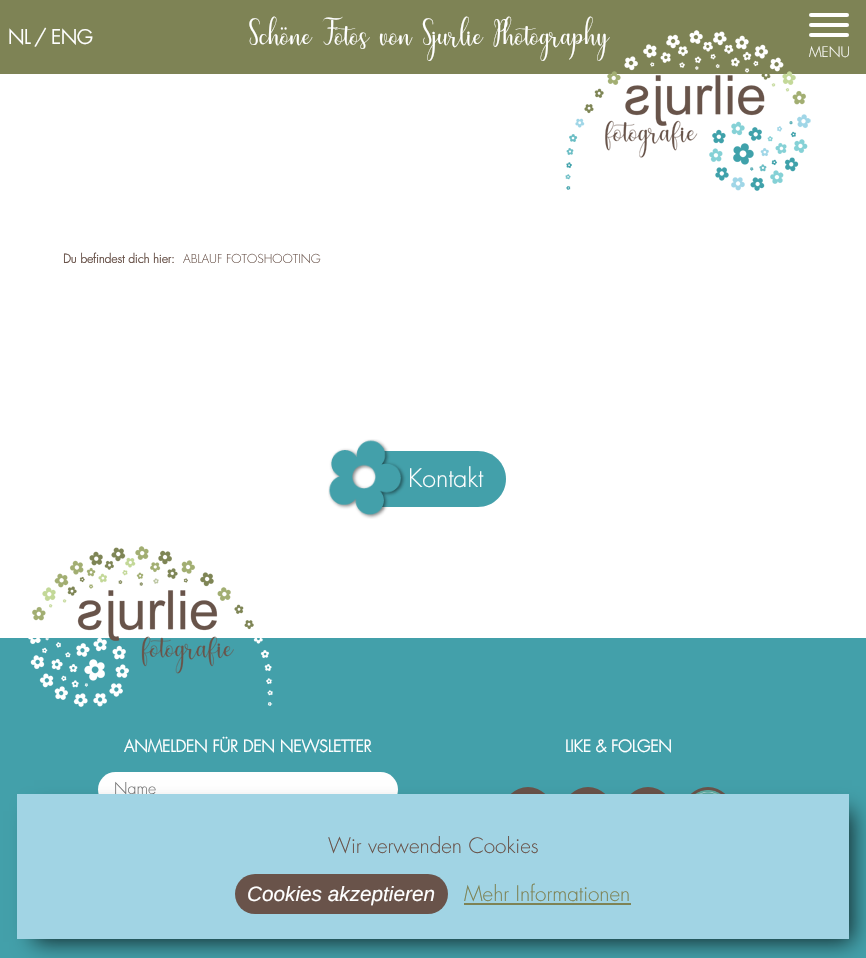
#include "include/core/SkBlurTypes.h"
#include "include/core/SkCanvas.h"
#include "include/core/SkData.h"
#include "include/core/SkFont.h"
#include "include/core/SkFontMgr.h"
#include "include/core/SkImage.h"
#include "include/core/SkMaskFilter.h"
#include "include/core/SkPaint.h"
#include "include/core/SkPathBuilder.h"
#include "include/core/SkTextBlob.h"
#include "include/effects/SkDashPathEffect.h"
#include "include/effects/SkGradientShader.h"
#include "include/utils/SkParsePath.h"

extern sk_sp<SkFontMgr> fontMgr;

void draw(SkCanvas* canvas) {
    SkPaint p;
    p.setAntiAlias(true);
    auto font = [&](const char* family, int weight, float size, bool italic = false) {
        SkFontStyle style(weight, SkFontStyle::kNormal_Width,
            italic ? SkFontStyle::kItalic_Slant : SkFontStyle::kUpright_Slant);
        SkFont result(fontMgr->matchFamilyStyle(family, style), size);
        result.setSubpixel(true);
        return result;
    };
    auto drawPhoto = [&](const char* path, float l, float t, float r, float b) {
        auto image = SkImages::DeferredFromEncodedData(SkData::MakeFromFileName(path));
        canvas->drawImageRect(image, SkRect::MakeLTRB(l, t, r, b), SkSamplingOptions());
    };
    canvas->clear(0xFFFFFFFF);
    p.setColor(0xFF7E8355);
    canvas->drawRect(SkRect::MakeLTRB(0, 0, 866, 74), p);
    auto font1 = font("Futura", 700, 19);
    p.setColor(0xFFFFFFFF);
    {
        const struct { const char* s; float x, y; } items[] = {
            {"NL", 8, 44},
            {"/", 34, 44},
            {"ENG", 51, 44},
        };
        for (auto [s, x, y] : items) {
            canvas->drawString(s, x, y, font1, p);
        }
    }
    auto font2 = font("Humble", 400, 35);
    canvas->drawString("Schöne Fotos von Sjurlie Photography", 249, 44, font2, p);
    drawPhoto("media/1.png", 565, 30, 811, 191);
    canvas->drawRoundRect(SkRect::MakeLTRB(809, 23, 849, 27), 2, 2, p);
    canvas->drawRoundRect(SkRect::MakeLTRB(809, 13, 849, 17), 2, 2, p);
    canvas->drawRoundRect(SkRect::MakeLTRB(809, 33, 849, 37), 2, 2, p);
    auto font3 = font("Futura", 300, 14);
    canvas->drawString("MENU", 809, 57, font3, p);
    auto font4 = font("Futura", 700, 12);
    p.setColor(0xFF69534A);
    canvas->drawString("Du befindest dich hier:", 63, 263, font4, p);
    auto font5 = font("Futura", 300, 12);
    canvas->drawString("ABLAUF FOTOSHOOTING", 183, 263, font5, p);
    p.setColor(0xFF43A0AA);
    canvas->drawPath(SkPathBuilder().moveTo(378, 451).lineTo(478, 451).cubicTo(493.5f, 451, 506, 463.5f, 506, 479).cubicTo(506, 494.5f, 493.5f, 507, 478, 507).lineTo(378, 507).close().detach(), p);
    drawPhoto("media/2.png", 328, 439, 406, 519);
    auto font6 = font("Futura", 300, 25);
    p.setColor(0xFFFFFFFF);
    canvas->drawString("Kontakt", 408, 487, font6, p);
    p.setColor(0xFF43A0AA);
    canvas->drawRect(SkRect::MakeLTRB(0, 638, 866, 958), p);
    drawPhoto("media/3.png", 28, 546, 273, 707);
    auto font7 = font("Futura", 700, 16);
    p.setColor(0xFFFFFFFF);
    canvas->drawString("ANMELDEN FÜR DEN NEWSLETTER", 124, 752, font7, p);
    canvas->drawRoundRect(SkRect::MakeLTRB(98, 772, 398, 807), 17.5f, 17.5f, p);
    auto font8 = font("Futura", 300, 16);
    p.setColor(0xFF757575);
    canvas->drawString("Name", 114, 794, font8, p);
    p.setColor(0xFFFFFFFF);
    canvas->drawString("LIKE & FOLGEN", 565, 752, font7, p);
    p.setColor(0xFF69534A);
    canvas->drawCircle(528, 812, 25, p);
    canvas->drawCircle(588, 812, 25, p);
    canvas->drawCircle(648, 812, 25, p);
    canvas->drawCircle(708, 812, 25, p);
    drawPhoto("media/4.png", 695, 790, 721, 794);
    p.setColor(0xBF000000);
    p.setMaskFilter(SkMaskFilter::MakeBlur(kNormal_SkBlurStyle, 10.5f));
    canvas->drawRect(SkRect::MakeLTRB(34, 811, 852, 942), p);
    p.setMaskFilter(nullptr);
    p.setColor(0xFFA1D4E4);
    canvas->drawRect(SkRect::MakeLTRB(17, 794, 849, 939), p);
    auto font9 = font("Futura", 300, 20.75f);
    p.setColor(0xFF69534A);
    canvas->drawString("Wir verwenden Cookies", 328, 853, font9, p);
    canvas->drawRoundRect(SkRect::MakeLTRB(235, 874, 448, 914), 20, 20, p);
    auto font10 = font("Liberation Sans", 400, 20.75f, true);
    p.setColor(0xFFFFFFFF);
    canvas->drawString("Cookies akzeptieren", 247, 901, font10, p);
    p.setColor(0xFF7E8355);
    canvas->drawString("Mehr Informationen", 464, 901, font9, p);
    canvas->drawRect(SkRect::MakeLTRB(464, 903, 631, 905), p);
}
